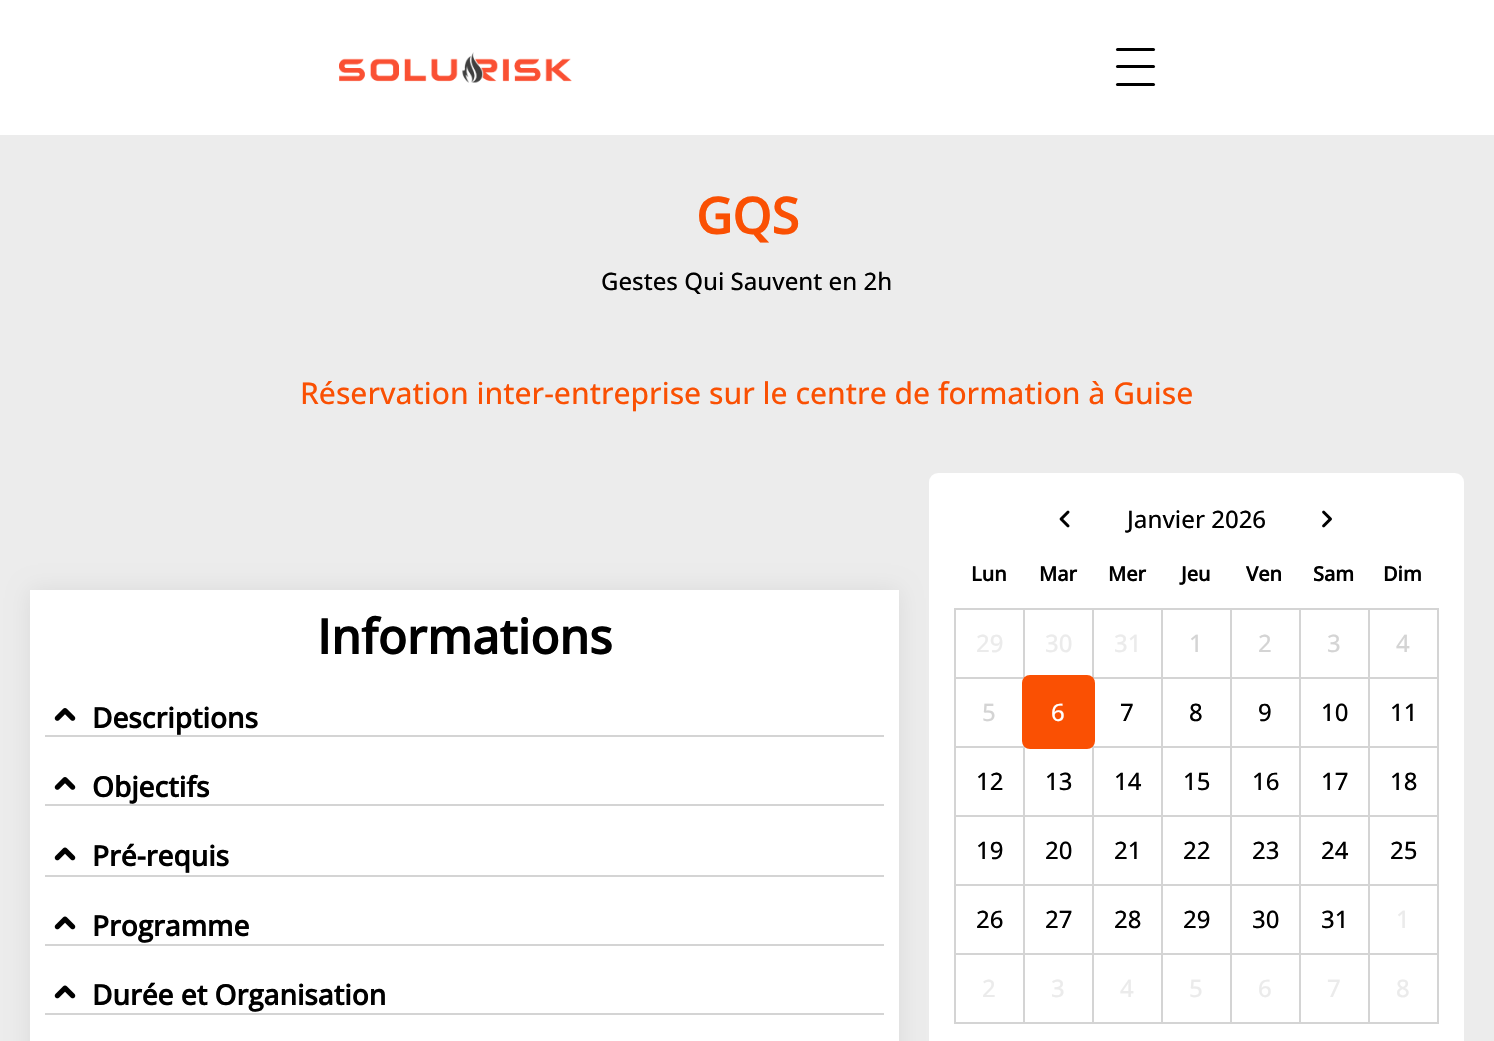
#include "include/core/SkBlurTypes.h"
#include "include/core/SkCanvas.h"
#include "include/core/SkData.h"
#include "include/core/SkFont.h"
#include "include/core/SkFontMgr.h"
#include "include/core/SkImage.h"
#include "include/core/SkMaskFilter.h"
#include "include/core/SkPaint.h"
#include "include/core/SkPathBuilder.h"
#include "include/core/SkTextBlob.h"
#include "include/effects/SkDashPathEffect.h"
#include "include/effects/SkGradientShader.h"
#include "include/utils/SkParsePath.h"

extern sk_sp<SkFontMgr> fontMgr;

void draw(SkCanvas* canvas) {
    SkPaint p;
    p.setAntiAlias(true);
    auto font = [&](const char* family, int weight, float size, bool italic = false) {
        SkFontStyle style(weight, SkFontStyle::kNormal_Width,
            italic ? SkFontStyle::kItalic_Slant : SkFontStyle::kUpright_Slant);
        SkFont result(fontMgr->matchFamilyStyle(family, style), size);
        result.setSubpixel(true);
        return result;
    };
    auto drawPhoto = [&](const char* path, float l, float t, float r, float b) {
        auto image = SkImages::DeferredFromEncodedData(SkData::MakeFromFileName(path));
        canvas->drawImageRect(image, SkRect::MakeLTRB(l, t, r, b), SkSamplingOptions());
    };
    canvas->clear(0xFFFFFFFF);
    drawPhoto("media/1.png", 339, 52, 572, 83);
    p.setColor(0xFF000000);
    canvas->drawRoundRect(SkRect::MakeLTRB(1116, 48, 1155, 51), 1.5f, 1.5f, p);
    canvas->drawRoundRect(SkRect::MakeLTRB(1116, 65, 1155, 68), 1.5f, 1.5f, p);
    canvas->drawRoundRect(SkRect::MakeLTRB(1116, 83, 1155, 86), 1.5f, 1.5f, p);
    p.setColor(0xFFECECEC);
    canvas->drawRect(SkRect::MakeLTRB(0, 135, 1494, 1041), p);
    auto font1 = font("Open Sans", 700, 50);
    p.setColor(0xFFFA5003);
    canvas->drawString("GQS", 696, 234, font1, p);
    auto font2 = font("Open Sans", 500, 24);
    p.setColor(0xFF000000);
    canvas->drawString("Gestes Qui Sauvent en 2h", 601, 290, font2, p);
    auto font3 = font("Open Sans", 500, 30);
    p.setColor(0xFFFA5003);
    canvas->drawString("Réservation inter-entreprise sur le centre de formation à Guise", 300, 404, font3, p);
    p.setColor(0xFFDADADA);
    p.setMaskFilter(SkMaskFilter::MakeBlur(kNormal_SkBlurStyle, 11));
    canvas->drawRect(SkRect::MakeLTRB(30, 590, 899, 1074), p);
    p.setMaskFilter(nullptr);
    p.setColor(0xFFFFFFFF);
    canvas->drawRect(SkRect::MakeLTRB(30, 590, 899, 1041), p);
    auto font4 = font("Open Sans", 700, 48);
    p.setColor(0xFF000000);
    canvas->drawString("Informations", 317, 654, font4, p);
    p.setColor(0xFFD4D4D4);
    canvas->drawRect(SkRect::MakeLTRB(45, 735, 884, 737), p);
    drawPhoto("media/2.png", 54, 708, 76, 721);
    auto font5 = font("Open Sans", 700, 28);
    p.setColor(0xFF000000);
    canvas->drawString("Descriptions", 92, 728, font5, p);
    p.setColor(0xFFD4D4D4);
    canvas->drawRect(SkRect::MakeLTRB(45, 804, 884, 806), p);
    drawPhoto("media/2.png", 54, 777, 76, 790);
    p.setColor(0xFF000000);
    canvas->drawString("Objectifs", 92, 797, font5, p);
    p.setColor(0xFFD4D4D4);
    canvas->drawRect(SkRect::MakeLTRB(45, 875, 884, 877), p);
    drawPhoto("media/3.png", 54, 847, 76, 861);
    p.setColor(0xFF000000);
    canvas->drawString("Pré-requis", 92, 866, font5, p);
    p.setColor(0xFFD4D4D4);
    canvas->drawRect(SkRect::MakeLTRB(45, 944, 884, 946), p);
    drawPhoto("media/3.png", 54, 916, 76, 930);
    p.setColor(0xFF000000);
    canvas->drawString("Programme", 92, 936, font5, p);
    p.setColor(0xFFD4D4D4);
    canvas->drawRect(SkRect::MakeLTRB(45, 1013, 884, 1015), p);
    drawPhoto("media/3.png", 54, 985, 76, 999);
    p.setColor(0xFF000000);
    canvas->drawString("Durée et Organisation", 92, 1005, font5, p);
    p.setColor(0xFFFFFFFF);
    canvas->drawRoundRect(SkRect::MakeLTRB(929, 473, 1464, 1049), 9, 9, p);
    drawPhoto("media/4.png", 1059, 510, 1070, 528);
    p.setColor(0xFF000000);
    canvas->drawString("Janvier 2026", 1127, 528, font2, p);
    drawPhoto("media/5.png", 1322, 510, 1332, 528);
    auto font6 = font("Open Sans", 700, 20);
    {
        const struct { const char* s; float x, y; } items[] = {
            {"Lun", 971, 581},
            {"Mar", 1039, 581},
            {"Mer", 1108, 581},
            {"Jeu", 1181, 581},
            {"Ven", 1246, 581},
            {"Sam", 1313, 581},
            {"Dim", 1383, 581},
        };
        for (auto [s, x, y] : items) {
            canvas->drawString(s, x, y, font6, p);
        }
    }
    {
        const struct { float l, t, r, b; SkColor color; } items[] = {
            {954, 608, 1439, 610, 0xFFD4D4D4},
            {954, 677, 1439, 679, 0xFFD4D4D4},
            {954, 609, 956, 678, 0xFFD4D4D4},
            {1023, 609, 1025, 677, 0xFFD4D4D4},
        };
        for (auto [l, t, r, b, color] : items) {
            p.setColor(color);
            canvas->drawRect(SkRect::MakeLTRB(l, t, r, b), p);
        }
    }
    p.setColor(0xFFEBEBEB);
    canvas->drawString("29", 976, 652, font2, p);
    p.setColor(0xFFD4D4D4);
    canvas->drawRect(SkRect::MakeLTRB(1092, 609, 1094, 677), p);
    p.setColor(0xFFEBEBEB);
    canvas->drawString("30", 1045, 652, font2, p);
    p.setColor(0xFFD4D4D4);
    canvas->drawRect(SkRect::MakeLTRB(1161, 609, 1163, 677), p);
    p.setColor(0xFFEBEBEB);
    canvas->drawString("31", 1114, 652, font2, p);
    p.setColor(0xFFD4D4D4);
    canvas->drawRect(SkRect::MakeLTRB(1230, 609, 1232, 677), p);
    canvas->drawString("1", 1189, 652, font2, p);
    canvas->drawRect(SkRect::MakeLTRB(1299, 609, 1301, 677), p);
    canvas->drawString("2", 1258, 652, font2, p);
    canvas->drawRect(SkRect::MakeLTRB(1368, 609, 1370, 677), p);
    canvas->drawString("3", 1327, 652, font2, p);
    canvas->drawRect(SkRect::MakeLTRB(1437, 609, 1439, 677), p);
    canvas->drawString("4", 1396, 652, font2, p);
    {
        const struct { float l, t, r, b; SkColor color; } items[] = {
            {954, 746, 1439, 748, 0xFFD4D4D4},
            {954, 678, 956, 747, 0xFFD4D4D4},
            {1023, 678, 1024, 746, 0xFFD4D4D4},
        };
        for (auto [l, t, r, b, color] : items) {
            p.setColor(color);
            canvas->drawRect(SkRect::MakeLTRB(l, t, r, b), p);
        }
    }
    canvas->drawString("5", 982, 721, font2, p);
    {
        const struct { float l, t, r, b; SkColor color; } items[] = {
            {1093, 678, 1094, 746, 0xFFD4D4D4},
            {1023, 747, 1025, 815, 0xFFD4D4D4},
            {1092, 747, 1094, 815, 0xFFD4D4D4},
        };
        for (auto [l, t, r, b, color] : items) {
            p.setColor(color);
            canvas->drawRect(SkRect::MakeLTRB(l, t, r, b), p);
        }
    }
    p.setColor(0xFFFA5003);
    canvas->drawRoundRect(SkRect::MakeLTRB(1022, 675, 1095, 749), 8, 8, p);
    p.setColor(0xFFFFFFFF);
    canvas->drawString("6", 1051, 721, font2, p);
    p.setColor(0xFFD4D4D4);
    canvas->drawRect(SkRect::MakeLTRB(1161, 678, 1163, 746), p);
    p.setColor(0xFF000000);
    canvas->drawString("7", 1120, 721, font2, p);
    p.setColor(0xFFD4D4D4);
    canvas->drawRect(SkRect::MakeLTRB(1230, 678, 1232, 746), p);
    p.setColor(0xFF000000);
    canvas->drawString("8", 1189, 721, font2, p);
    p.setColor(0xFFD4D4D4);
    canvas->drawRect(SkRect::MakeLTRB(1299, 678, 1301, 746), p);
    p.setColor(0xFF000000);
    canvas->drawString("9", 1258, 721, font2, p);
    p.setColor(0xFFD4D4D4);
    canvas->drawRect(SkRect::MakeLTRB(1368, 678, 1370, 746), p);
    p.setColor(0xFF000000);
    canvas->drawString("10", 1321, 721, font2, p);
    p.setColor(0xFFD4D4D4);
    canvas->drawRect(SkRect::MakeLTRB(1437, 678, 1439, 746), p);
    p.setColor(0xFF000000);
    canvas->drawString("11", 1390, 721, font2, p);
    p.setColor(0xFFD4D4D4);
    canvas->drawRect(SkRect::MakeLTRB(954, 815, 1439, 817), p);
    canvas->drawRect(SkRect::MakeLTRB(954, 747, 956, 816), p);
    p.setColor(0xFF000000);
    canvas->drawString("12", 976, 790, font2, p);
    canvas->drawString("13", 1045, 790, font2, p);
    p.setColor(0xFFD4D4D4);
    canvas->drawRect(SkRect::MakeLTRB(1161, 747, 1163, 815), p);
    p.setColor(0xFF000000);
    canvas->drawString("14", 1114, 790, font2, p);
    p.setColor(0xFFD4D4D4);
    canvas->drawRect(SkRect::MakeLTRB(1230, 747, 1232, 815), p);
    p.setColor(0xFF000000);
    canvas->drawString("15", 1183, 790, font2, p);
    p.setColor(0xFFD4D4D4);
    canvas->drawRect(SkRect::MakeLTRB(1299, 747, 1301, 815), p);
    p.setColor(0xFF000000);
    canvas->drawString("16", 1252, 790, font2, p);
    p.setColor(0xFFD4D4D4);
    canvas->drawRect(SkRect::MakeLTRB(1368, 747, 1370, 815), p);
    p.setColor(0xFF000000);
    canvas->drawString("17", 1321, 790, font2, p);
    p.setColor(0xFFD4D4D4);
    canvas->drawRect(SkRect::MakeLTRB(1437, 747, 1439, 815), p);
    p.setColor(0xFF000000);
    canvas->drawString("18", 1390, 790, font2, p);
    {
        const struct { float l, t, r, b; SkColor color; } items[] = {
            {954, 884, 1439, 886, 0xFFD4D4D4},
            {954, 816, 956, 885, 0xFFD4D4D4},
            {1023, 816, 1025, 884, 0xFFD4D4D4},
        };
        for (auto [l, t, r, b, color] : items) {
            p.setColor(color);
            canvas->drawRect(SkRect::MakeLTRB(l, t, r, b), p);
        }
    }
    p.setColor(0xFF000000);
    canvas->drawString("19", 976, 859, font2, p);
    p.setColor(0xFFD4D4D4);
    canvas->drawRect(SkRect::MakeLTRB(1092, 816, 1094, 884), p);
    p.setColor(0xFF000000);
    canvas->drawString("20", 1045, 859, font2, p);
    p.setColor(0xFFD4D4D4);
    canvas->drawRect(SkRect::MakeLTRB(1161, 816, 1163, 884), p);
    p.setColor(0xFF000000);
    canvas->drawString("21", 1114, 859, font2, p);
    p.setColor(0xFFD4D4D4);
    canvas->drawRect(SkRect::MakeLTRB(1230, 816, 1232, 884), p);
    p.setColor(0xFF000000);
    canvas->drawString("22", 1183, 859, font2, p);
    p.setColor(0xFFD4D4D4);
    canvas->drawRect(SkRect::MakeLTRB(1299, 816, 1301, 884), p);
    p.setColor(0xFF000000);
    canvas->drawString("23", 1252, 859, font2, p);
    p.setColor(0xFFD4D4D4);
    canvas->drawRect(SkRect::MakeLTRB(1368, 816, 1370, 884), p);
    p.setColor(0xFF000000);
    canvas->drawString("24", 1321, 859, font2, p);
    p.setColor(0xFFD4D4D4);
    canvas->drawRect(SkRect::MakeLTRB(1437, 816, 1439, 884), p);
    p.setColor(0xFF000000);
    canvas->drawString("25", 1390, 859, font2, p);
    {
        const struct { float l, t, r, b; SkColor color; } items[] = {
            {954, 953, 1439, 955, 0xFFD4D4D4},
            {954, 885, 956, 954, 0xFFD4D4D4},
            {1023, 885, 1025, 953, 0xFFD4D4D4},
        };
        for (auto [l, t, r, b, color] : items) {
            p.setColor(color);
            canvas->drawRect(SkRect::MakeLTRB(l, t, r, b), p);
        }
    }
    p.setColor(0xFF000000);
    canvas->drawString("26", 976, 928, font2, p);
    p.setColor(0xFFD4D4D4);
    canvas->drawRect(SkRect::MakeLTRB(1092, 885, 1094, 953), p);
    p.setColor(0xFF000000);
    canvas->drawString("27", 1045, 928, font2, p);
    p.setColor(0xFFD4D4D4);
    canvas->drawRect(SkRect::MakeLTRB(1161, 885, 1163, 953), p);
    p.setColor(0xFF000000);
    canvas->drawString("28", 1114, 928, font2, p);
    p.setColor(0xFFD4D4D4);
    canvas->drawRect(SkRect::MakeLTRB(1230, 885, 1232, 953), p);
    p.setColor(0xFF000000);
    canvas->drawString("29", 1183, 928, font2, p);
    p.setColor(0xFFD4D4D4);
    canvas->drawRect(SkRect::MakeLTRB(1299, 885, 1301, 953), p);
    p.setColor(0xFF000000);
    canvas->drawString("30", 1252, 928, font2, p);
    p.setColor(0xFFD4D4D4);
    canvas->drawRect(SkRect::MakeLTRB(1368, 885, 1370, 953), p);
    p.setColor(0xFF000000);
    canvas->drawString("31", 1321, 928, font2, p);
    p.setColor(0xFFD4D4D4);
    canvas->drawRect(SkRect::MakeLTRB(1437, 885, 1439, 953), p);
    p.setColor(0xFFEBEBEB);
    canvas->drawString("1", 1396, 928, font2, p);
    {
        const struct { float l, t, r, b; SkColor color; } items[] = {
            {954, 1022, 1439, 1024, 0xFFD4D4D4},
            {954, 954, 956, 1023, 0xFFD4D4D4},
            {1023, 954, 1025, 1022, 0xFFD4D4D4},
        };
        for (auto [l, t, r, b, color] : items) {
            p.setColor(color);
            canvas->drawRect(SkRect::MakeLTRB(l, t, r, b), p);
        }
    }
    p.setColor(0xFFEBEBEB);
    canvas->drawString("2", 982, 997, font2, p);
    p.setColor(0xFFD4D4D4);
    canvas->drawRect(SkRect::MakeLTRB(1092, 954, 1094, 1022), p);
    p.setColor(0xFFEBEBEB);
    canvas->drawString("3", 1051, 997, font2, p);
    p.setColor(0xFFD4D4D4);
    canvas->drawRect(SkRect::MakeLTRB(1161, 954, 1163, 1022), p);
    p.setColor(0xFFEBEBEB);
    canvas->drawString("4", 1120, 997, font2, p);
    p.setColor(0xFFD4D4D4);
    canvas->drawRect(SkRect::MakeLTRB(1230, 954, 1232, 1022), p);
    p.setColor(0xFFEBEBEB);
    canvas->drawString("5", 1189, 997, font2, p);
    p.setColor(0xFFD4D4D4);
    canvas->drawRect(SkRect::MakeLTRB(1299, 954, 1301, 1022), p);
    p.setColor(0xFFEBEBEB);
    canvas->drawString("6", 1258, 997, font2, p);
    p.setColor(0xFFD4D4D4);
    canvas->drawRect(SkRect::MakeLTRB(1368, 954, 1370, 1022), p);
    p.setColor(0xFFEBEBEB);
    canvas->drawString("7", 1327, 997, font2, p);
    p.setColor(0xFFD4D4D4);
    canvas->drawRect(SkRect::MakeLTRB(1437, 954, 1439, 1022), p);
    p.setColor(0xFFEBEBEB);
    canvas->drawString("8", 1396, 997, font2, p);
}
